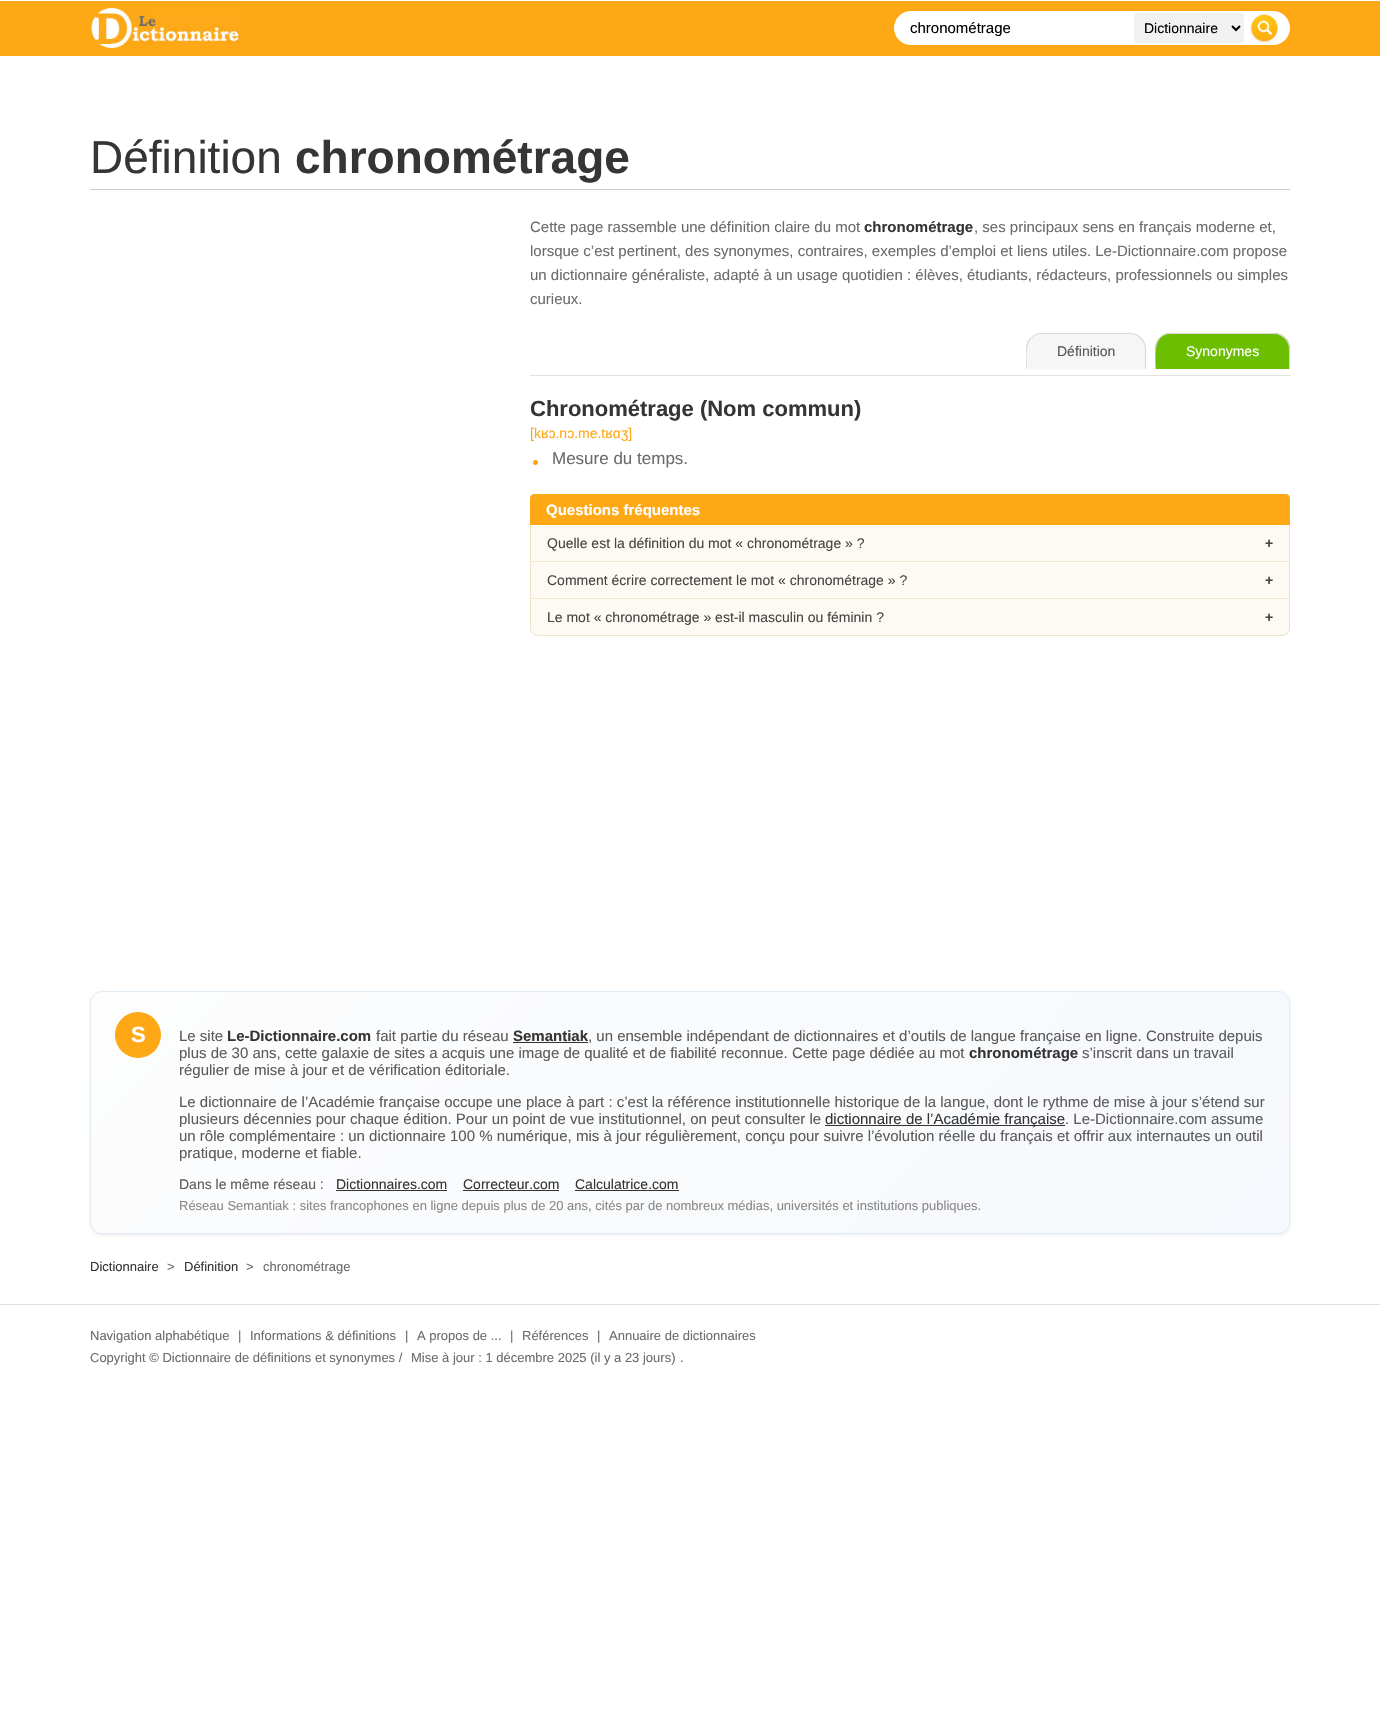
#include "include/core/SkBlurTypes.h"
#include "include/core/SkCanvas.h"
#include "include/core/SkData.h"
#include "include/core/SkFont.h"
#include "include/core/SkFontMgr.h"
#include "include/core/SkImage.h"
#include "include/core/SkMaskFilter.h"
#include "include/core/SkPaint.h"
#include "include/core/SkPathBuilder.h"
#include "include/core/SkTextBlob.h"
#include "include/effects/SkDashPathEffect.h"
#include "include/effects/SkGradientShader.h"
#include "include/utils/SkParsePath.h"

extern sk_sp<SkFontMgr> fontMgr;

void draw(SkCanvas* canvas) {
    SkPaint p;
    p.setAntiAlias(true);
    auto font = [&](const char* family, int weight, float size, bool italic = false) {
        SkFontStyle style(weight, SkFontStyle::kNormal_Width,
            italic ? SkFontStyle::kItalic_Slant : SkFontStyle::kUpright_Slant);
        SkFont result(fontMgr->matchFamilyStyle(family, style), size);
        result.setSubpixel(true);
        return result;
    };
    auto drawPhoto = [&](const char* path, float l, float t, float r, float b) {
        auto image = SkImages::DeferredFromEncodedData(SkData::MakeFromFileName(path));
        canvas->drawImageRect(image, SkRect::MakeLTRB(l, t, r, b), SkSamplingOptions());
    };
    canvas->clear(0xFFFFFFFF);
    p.setColor(0xFFFEA816);
    canvas->drawRect(SkRect::MakeLTRB(0, 5, 1380, 56), p);
    drawPhoto("media/1.png", 0, 0, 1380, 5);
    drawPhoto("media/2.png", 90, 8, 240, 48);
    p.setColor(0xFFFFFFFF);
    canvas->drawRoundRect(SkRect::MakeLTRB(894, 11, 1290, 45), 17, 17, p);
    auto font1 = font("Liberation Sans", 400, 15);
    p.setColor(0xFF000000);
    canvas->drawString("chronométrage", 910, 33, font1, p);
    p.setColor(0xFFF1F1F1);
    canvas->drawRect(SkRect::MakeLTRB(1134, 13, 1244, 43), p);
    p.setStyle(SkPaint::kStroke_Style);
    p.setStrokeWidth(2);
    p.setColor(0xFF000000);
    canvas->drawPath(SkPathBuilder().moveTo(1232, 26).lineTo(1236, 30).lineTo(1240, 26).detach(), p);
    auto font2 = font("Liberation Sans", 400, 14);
    p.setStyle(SkPaint::kFill_Style);
    canvas->drawString("Dictionnaire", 1144, 33, font2, p);
    drawPhoto("media/3.png", 1250, 14, 1279, 43);
    p.setColor(0xFFCCCCCC);
    canvas->drawRect(SkRect::MakeLTRB(90, 189, 1290, 190), p);
    auto font3 = font("Liberation Sans", 400, 46);
    p.setColor(0xFF353535);
    canvas->drawString("Définition", 90, 173, font3, p);
    auto font4 = font("Liberation Sans", 700, 46);
    canvas->drawString("chronométrage", 295, 173, font4, p);
    p.setColor(0xFF6B6B6B);
    canvas->drawString("Cette page rassemble une définition claire du mot", 530, 232, font1, p);
    auto font5 = font("Liberation Sans", 700, 15);
    p.setColor(0xFF353535);
    canvas->drawString("chronométrage", 864, 232, font5, p);
    p.setColor(0xFF6B6B6B);
    {
        const struct { const char* s; float x, y; } items[] = {
            {", ses principaux sens en français moderne et,", 974, 232},
            {"lorsque c’est pertinent, des synonymes, contraires, exemples d’emploi et liens utiles. Le-Dictionnaire.com propose", 530, 256},
            {"un dictionnaire généraliste, adapté à un usage quotidien : élèves, étudiants, rédacteurs, professionnels ou simples", 530, 280},
            {"curieux.", 530, 304},
        };
        for (auto [s, x, y] : items) {
            canvas->drawString(s, x, y, font1, p);
        }
    }
    p.setColor(0xFFE3E3E3);
    canvas->drawRect(SkRect::MakeLTRB(530, 375, 1290, 376), p);
    p.setColor(0xFFF6F6F6);
    canvas->drawPath(SkPathBuilder().moveTo(1042, 333).lineTo(1130, 333).cubicTo(1139, 333, 1146, 340, 1146, 349).lineTo(1146, 369).lineTo(1026, 369).lineTo(1026, 349).cubicTo(1026, 340, 1033, 333, 1042, 333).close().detach(), p);
    p.setColor(0xFFD8D8D8);
    canvas->drawPath(SkPathBuilder(SkPathFillType::kEvenOdd).moveTo(1042, 333).lineTo(1130, 333).cubicTo(1139, 333, 1146, 340, 1146, 349).lineTo(1146, 369).lineTo(1026, 369).lineTo(1026, 349).cubicTo(1026, 340, 1033, 333, 1042, 333).close().moveTo(1042, 334).lineTo(1130, 334).cubicTo(1138, 334, 1145, 341, 1145, 349).lineTo(1145, 369).lineTo(1027, 369).cubicTo(1027, 357, 1023, 334, 1042, 334).close().detach(), p);
    p.setColor(0xFF555555);
    canvas->drawString("Définition", 1057, 356, font2, p);
    p.setColor(0xFF6BBF00);
    canvas->drawPath(SkPathBuilder().moveTo(1171, 333).lineTo(1274, 333).cubicTo(1283, 333, 1290, 340, 1290, 349).lineTo(1290, 369).lineTo(1155, 369).lineTo(1155, 349).cubicTo(1155, 340, 1162, 333, 1171, 333).close().detach(), p);
    p.setColor(0xFFD8D8D8);
    canvas->drawPath(SkPathBuilder(SkPathFillType::kEvenOdd).moveTo(1171, 333).lineTo(1274, 333).cubicTo(1283, 333, 1290, 340, 1290, 349).lineTo(1290, 369).lineTo(1155, 369).lineTo(1155, 349).cubicTo(1155, 340, 1162, 333, 1171, 333).close().moveTo(1171, 334).lineTo(1274, 334).cubicTo(1282, 334, 1289, 341, 1289, 349).lineTo(1289, 369).lineTo(1156, 369).cubicTo(1156, 357, 1152, 334, 1171, 334).close().detach(), p);
    p.setColor(0xFFFFFFFF);
    canvas->drawString("Synonymes", 1186, 356, font2, p);
    auto font6 = font("Liberation Sans", 700, 22);
    p.setColor(0xFF353535);
    canvas->drawString("Chronométrage (Nom commun)", 530, 416, font6, p);
    p.setColor(0xFFFEA816);
    canvas->drawString("[kʁɔ.nɔ.me.tʁɑʒ]", 530, 438, font2, p);
    drawPhoto("media/4.png", 533, 460, 538, 465);
    auto font7 = font("Liberation Sans", 400, 17);
    p.setColor(0xFF6B6B6B);
    canvas->drawString("Mesure du temps.", 552, 464, font7, p);
    p.setColor(0xFFFEA816);
    canvas->drawPath(SkPathBuilder().moveTo(534, 494).lineTo(1286, 494).cubicTo(1288, 494, 1290, 496, 1290, 498).lineTo(1290, 525).lineTo(530, 525).lineTo(530, 498).cubicTo(530, 496, 532, 494, 534, 494).close().detach(), p);
    p.setColor(0xFFFFFFFF);
    canvas->drawString("Questions fréquentes", 546, 515, font5, p);
    p.setColor(0xFFFDFAF3);
    canvas->drawPath(SkPathBuilder().moveTo(530, 525).lineTo(1290, 525).lineTo(1290, 628).cubicTo(1290, 632.5f, 1286.5f, 636, 1282, 636).lineTo(538, 636).cubicTo(533.5f, 636, 530, 632.5f, 530, 628).close().detach(), p);
    p.setColor(0xFFF0E3C8);
    canvas->drawPath(SkPathBuilder(SkPathFillType::kEvenOdd).moveTo(530, 525).lineTo(1290, 525).lineTo(1290, 628).cubicTo(1290, 632, 1286, 636, 1282, 636).lineTo(538, 636).cubicTo(534, 636, 530, 632, 530, 628).close().moveTo(531, 525).lineTo(1289, 525).lineTo(1289, 628).cubicTo(1289, 632, 1286, 635, 1282, 635).lineTo(538, 635).cubicTo(534, 635, 531, 632, 531, 628).close().detach(), p);
    p.setColor(0xFF454545);
    canvas->drawString("Quelle est la définition du mot « chronométrage » ?", 547, 548, font2, p);
    auto font8 = font("Liberation Sans", 700, 14);
    canvas->drawString("+", 1265, 548, font8, p);
    p.setColor(0xFFF2E7CF);
    canvas->drawRect(SkRect::MakeLTRB(531, 561, 1289, 562), p);
    p.setColor(0xFF454545);
    canvas->drawString("Comment écrire correctement le mot « chronométrage » ?", 547, 585, font2, p);
    canvas->drawString("+", 1265, 585, font8, p);
    p.setColor(0xFFF2E7CF);
    canvas->drawRect(SkRect::MakeLTRB(531, 598, 1289, 599), p);
    p.setColor(0xFF454545);
    canvas->drawString("Le mot « chronométrage » est-il masculin ou féminin ?", 547, 622, font2, p);
    canvas->drawString("+", 1265, 622, font8, p);
    p.setColor(0x14000000);
    p.setMaskFilter(SkMaskFilter::MakeBlur(kNormal_SkBlurStyle, 1.5f));
    canvas->drawRoundRect(SkRect::MakeLTRB(90, 992, 1290, 1235), 12, 12, p);
    p.setMaskFilter(nullptr);
    canvas->save();
    canvas->clipPath(SkPathBuilder().moveTo(102, 991).lineTo(1278, 991).cubicTo(1284.5f, 991, 1290, 996.5f, 1290, 1003).lineTo(1290, 1222).cubicTo(1290, 1228.5f, 1284.5f, 1234, 1278, 1234).lineTo(102, 1234).cubicTo(95.5f, 1234, 90, 1228.5f, 90, 1222).lineTo(90, 1003).cubicTo(90, 996.5f, 95.5f, 991, 102, 991).close().detach(), true);
    {
        const SkColor colors[] = {0xFFFDFDFD, 0xFFF5F8FC};
        const float stops[] = {0, 1};
        const SkPoint ends[] = {{330, 753}, {1050, 1472}};
        p.setShader(SkGradientShader::MakeLinear(ends, colors, stops, 2, SkTileMode::kClamp));
        p.setAlpha(255);
    }
    canvas->drawRect(SkRect::MakeLTRB(91, 992, 1289, 1233), p);
    canvas->restore();
    p.setStyle(SkPaint::kStroke_Style);
    p.setStrokeWidth(1);
    p.setShader(nullptr);
    p.setColor(0xFFE2ECF6);
    canvas->drawRoundRect(SkRect::MakeLTRB(90.5f, 991.5f, 1289.5f, 1233.5f), 11.5f, 11.5f, p);
    p.setStyle(SkPaint::kFill_Style);
    p.setColor(0xFFFEA816);
    canvas->drawCircle(138, 1035, 23, p);
    p.setColor(0xFFFFFFFF);
    canvas->drawString("S", 131, 1042, font6, p);
    p.setColor(0xFF5B5B5B);
    canvas->drawString("Le site", 179, 1041, font1, p);
    p.setColor(0xFF353535);
    canvas->drawString("Le-Dictionnaire.com", 227, 1041, font5, p);
    p.setColor(0xFF5B5B5B);
    canvas->drawString("fait partie du réseau", 376, 1041, font1, p);
    p.setColor(0xFF353535);
    canvas->drawString("Semantiak", 513, 1041, font5, p);
    p.setColor(0xFF333333);
    canvas->drawRect(SkRect::MakeLTRB(513, 1042, 588, 1043), p);
    p.setColor(0xFF5B5B5B);
    canvas->drawString(", un ensemble indépendant de dictionnaires et d’outils de langue française en ligne. Construite depuis", 588, 1041, font1, p);
    canvas->drawString("plus de 30 ans, cette galaxie de sites a acquis une image de qualité et de fiabilité reconnue. Cette page dédiée au mot", 179, 1058, font1, p);
    p.setColor(0xFF353535);
    canvas->drawString("chronométrage", 969, 1058, font5, p);
    p.setColor(0xFF5B5B5B);
    {
        const struct { const char* s; float x, y; } items[] = {
            {"s’inscrit dans un travail", 1082, 1058},
            {"régulier de mise à jour et de vérification éditoriale.", 179, 1075},
            {"Le dictionnaire de l’Académie française occupe une place à part : c’est la référence institutionnelle historique de la langue, dont le rythme de mise à jour s’étend sur", 179, 1107},
            {"plusieurs décennies pour chaque édition. Pour un point de vue institutionnel, on peut consulter le", 179, 1124},
        };
        for (auto [s, x, y] : items) {
            canvas->drawString(s, x, y, font1, p);
        }
    }
    p.setColor(0xFF333333);
    canvas->drawRect(SkRect::MakeLTRB(825, 1125, 1065, 1126), p);
    p.setColor(0xFF353535);
    canvas->drawString("dictionnaire de l’Académie française", 825, 1124, font1, p);
    p.setColor(0xFF5B5B5B);
    {
        const struct { const char* s; float x, y; } items[] = {
            {". Le-Dictionnaire.com assume", 1065, 1124},
            {"un rôle complémentaire : un dictionnaire 100 % numérique, mis à jour régulièrement, conçu pour suivre l’évolution réelle du français et offrir aux internautes un outil", 179, 1141},
            {"pratique, moderne et fiable.", 179, 1158},
        };
        for (auto [s, x, y] : items) {
            canvas->drawString(s, x, y, font1, p);
        }
    }
    canvas->drawString("Dans le même réseau :", 179, 1189, font2, p);
    p.setColor(0xFF353535);
    canvas->drawString("Dictionnaires.com", 336, 1189, font2, p);
    p.setColor(0xFF333333);
    canvas->drawRect(SkRect::MakeLTRB(336, 1190, 447, 1191), p);
    p.setColor(0xFF353535);
    canvas->drawString("Correcteur.com", 463, 1189, font2, p);
    p.setColor(0xFF333333);
    canvas->drawRect(SkRect::MakeLTRB(463, 1190, 559, 1191), p);
    p.setColor(0xFF353535);
    canvas->drawString("Calculatrice.com", 575, 1189, font2, p);
    p.setColor(0xFF333333);
    canvas->drawRect(SkRect::MakeLTRB(575, 1190, 679, 1191), p);
    auto font9 = font("Liberation Sans", 400, 13);
    p.setColor(0xFF888888);
    canvas->drawString("Réseau Semantiak : sites francophones en ligne depuis plus de 20 ans, cités par de nombreux médias, universités et institutions publiques.", 179, 1210, font9, p);
    p.setColor(0xFF353535);
    canvas->drawString("Dictionnaire", 90, 1271, font9, p);
    p.setColor(0xFF6B6B6B);
    canvas->drawString(">", 167, 1271, font9, p);
    p.setColor(0xFF353535);
    canvas->drawString("Définition", 184, 1271, font9, p);
    p.setColor(0xFF6B6B6B);
    canvas->drawString(">", 246, 1271, font9, p);
    canvas->drawString("chronométrage", 263, 1271, font9, p);
    p.setColor(0xFFE0E0E0);
    canvas->drawRect(SkRect::MakeLTRB(0, 1304, 1380, 1305), p);
    p.setColor(0xFF6B6B6B);
    {
        const struct { const char* s; float x, y; } items[] = {
            {"Navigation alphabétique", 90, 1340},
            {"|", 238, 1340},
            {"Informations & définitions", 250, 1340},
            {"|", 405, 1340},
            {"A propos de ...", 417, 1340},
            {"|", 510, 1340},
            {"Références", 522, 1340},
            {"|", 597, 1340},
            {"Annuaire de dictionnaires", 609, 1340},
            {"Copyright © Dictionnaire de définitions et synonymes /", 90, 1362},
            {"Mise à jour : 1 décembre 2025 (il y a 23 jours)", 411, 1362},
            {".", 680, 1362},
        };
        for (auto [s, x, y] : items) {
            canvas->drawString(s, x, y, font9, p);
        }
    }
}
